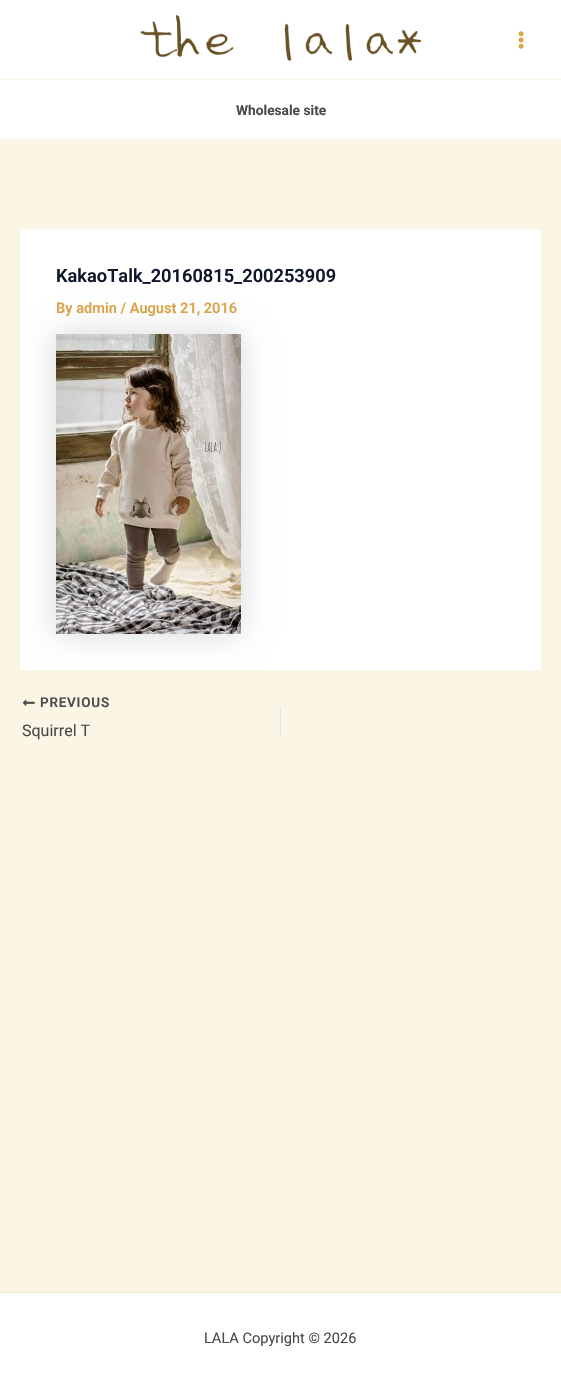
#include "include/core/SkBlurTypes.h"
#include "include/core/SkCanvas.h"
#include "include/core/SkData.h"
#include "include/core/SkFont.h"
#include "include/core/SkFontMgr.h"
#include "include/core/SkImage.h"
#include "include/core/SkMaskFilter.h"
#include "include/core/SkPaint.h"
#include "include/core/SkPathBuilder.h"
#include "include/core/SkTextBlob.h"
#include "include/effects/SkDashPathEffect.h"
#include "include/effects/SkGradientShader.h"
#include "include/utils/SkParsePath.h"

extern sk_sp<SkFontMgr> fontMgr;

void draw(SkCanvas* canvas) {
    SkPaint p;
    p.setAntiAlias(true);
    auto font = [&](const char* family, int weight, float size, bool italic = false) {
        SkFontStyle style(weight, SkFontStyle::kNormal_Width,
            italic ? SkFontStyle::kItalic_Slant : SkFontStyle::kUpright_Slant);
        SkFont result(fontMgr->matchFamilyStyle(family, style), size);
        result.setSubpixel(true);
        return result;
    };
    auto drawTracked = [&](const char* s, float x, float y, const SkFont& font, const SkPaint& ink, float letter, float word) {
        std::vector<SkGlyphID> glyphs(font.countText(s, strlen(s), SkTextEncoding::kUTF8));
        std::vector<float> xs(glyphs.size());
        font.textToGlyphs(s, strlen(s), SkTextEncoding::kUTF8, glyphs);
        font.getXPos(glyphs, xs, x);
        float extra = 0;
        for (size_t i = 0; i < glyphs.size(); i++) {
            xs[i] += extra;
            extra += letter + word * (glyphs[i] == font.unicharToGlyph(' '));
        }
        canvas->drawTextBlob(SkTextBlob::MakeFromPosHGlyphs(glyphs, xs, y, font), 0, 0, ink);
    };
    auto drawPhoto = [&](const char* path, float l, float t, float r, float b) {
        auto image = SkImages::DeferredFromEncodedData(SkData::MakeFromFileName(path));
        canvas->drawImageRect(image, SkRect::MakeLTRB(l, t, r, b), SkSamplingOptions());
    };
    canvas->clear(0xFFFAF5E5);
    p.setColor(0xFFFFFFFF);
    canvas->drawRect(SkRect::MakeLTRB(0, 0, 561, 79), p);
    drawPhoto("media/1.png", 140, 15, 422, 61);
    drawPhoto("media/2.png", 518, 31, 524, 49);
    canvas->drawRect(SkRect::MakeLTRB(0, 80, 561, 139), p);
    auto font1 = font("Roboto", 700, 13.75f);
    p.setColor(0xFF4A4A4A);
    canvas->drawString("Wholesale site", 236, 115, font1, p);
    p.setColor(0xFFFFFFFF);
    canvas->drawRect(SkRect::MakeLTRB(20, 229, 541, 670), p);
    auto font2 = font("Roboto", 600, 18.25f);
    p.setColor(0xFF0F172A);
    canvas->drawString("KakaoTalk_20160815_200253909", 56, 282, font2, p);
    auto font3 = font("Roboto", 600, 14.6f);
    p.setColor(0xFFDCA54A);
    canvas->drawString("By admin / August 21, 2016", 56, 313, font3, p);
    p.setColor(0x26000000);
    p.setMaskFilter(SkMaskFilter::MakeBlur(kNormal_SkBlurStyle, 15));
    canvas->drawRect(SkRect::MakeLTRB(56, 334, 241, 634), p);
    p.setMaskFilter(nullptr);
    drawPhoto("media/3.png", 56, 334, 241, 634);
    drawPhoto("media/4.png", 22, 699, 35, 706);
    auto font4 = font("Roboto", 600, 13.5f);
    p.setColor(0xFF4A4A4A);
    drawTracked("PREVIOUS", 40, 707, font4, p, 0.75f, 0);
    auto font5 = font("Roboto", 400, 16);
    canvas->drawString("Squirrel T", 22, 736, font5, p);
    {
        const struct { float l, t, r, b; SkColor color; } items[] = {
            {280, 707, 281, 737, 0xFFE1E8ED},
            {0, 1293, 561, 1393, 0xFFFFFFFF},
            {0, 1292, 561, 1293, 0xFFF0E6C5},
        };
        for (auto [l, t, r, b, color] : items) {
            p.setColor(color);
            canvas->drawRect(SkRect::MakeLTRB(l, t, r, b), p);
        }
    }
    auto font6 = font("Roboto", 400, 14.6f);
    p.setColor(0xFF4A4A4A);
    canvas->drawString("LALA Copyright © 2026", 204, 1343, font6, p);
}
